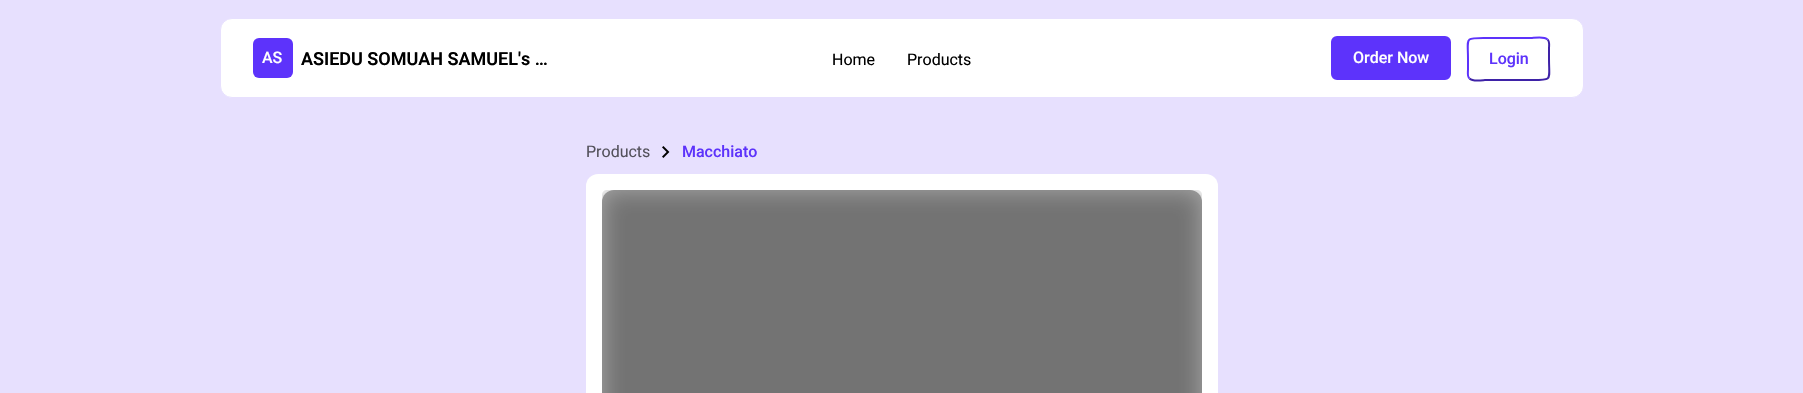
#include "include/core/SkBlurTypes.h"
#include "include/core/SkCanvas.h"
#include "include/core/SkData.h"
#include "include/core/SkFont.h"
#include "include/core/SkFontMgr.h"
#include "include/core/SkImage.h"
#include "include/core/SkMaskFilter.h"
#include "include/core/SkPaint.h"
#include "include/core/SkPathBuilder.h"
#include "include/core/SkTextBlob.h"
#include "include/effects/SkDashPathEffect.h"
#include "include/effects/SkGradientShader.h"
#include "include/utils/SkParsePath.h"

extern sk_sp<SkFontMgr> fontMgr;

void draw(SkCanvas* canvas) {
    SkPaint p;
    p.setAntiAlias(true);
    auto font = [&](const char* family, int weight, float size, bool italic = false) {
        SkFontStyle style(weight, SkFontStyle::kNormal_Width,
            italic ? SkFontStyle::kItalic_Slant : SkFontStyle::kUpright_Slant);
        SkFont result(fontMgr->matchFamilyStyle(family, style), size);
        result.setSubpixel(true);
        return result;
    };
    auto drawPhoto = [&](const char* path, float l, float t, float r, float b) {
        auto image = SkImages::DeferredFromEncodedData(SkData::MakeFromFileName(path));
        canvas->drawImageRect(image, SkRect::MakeLTRB(l, t, r, b), SkSamplingOptions());
    };
    canvas->clear(0xFFE7E0FE);
    p.setColor(0xFFFFFFFF);
    canvas->drawRoundRect(SkRect::MakeLTRB(220.5f, 18.5f, 1583.5f, 97.5f), 11.5f, 11.5f, p);
    p.setStyle(SkPaint::kStroke_Style);
    p.setStrokeWidth(1);
    p.setColor(0xFFE7E0FE);
    canvas->drawRoundRect(SkRect::MakeLTRB(220.5f, 18.5f, 1583.5f, 97.5f), 11.5f, 11.5f, p);
    p.setStyle(SkPaint::kFill_Style);
    p.setColor(0xFF5D33FB);
    canvas->drawRoundRect(SkRect::MakeLTRB(253, 38, 293, 78), 6, 6, p);
    auto font1 = font("Roboto", 500, 16);
    p.setColor(0xFFFFFFFF);
    canvas->drawString("AS", 262, 63, font1, p);
    auto font2 = font("Roboto", 600, 18);
    p.setColor(0xFF000000);
    canvas->drawString("ASIEDU SOMUAH SAMUEL's …", 301, 65, font2, p);
    auto font3 = font("Roboto", 400, 16);
    canvas->drawString("Home", 832, 65, font3, p);
    canvas->drawString("Products", 907, 65, font3, p);
    p.setColor(0xFF5D33FB);
    canvas->drawRoundRect(SkRect::MakeLTRB(1332, 37, 1450, 79), 5, 5, p);
    p.setStyle(SkPaint::kStroke_Style);
    p.setStrokeWidth(2);
    canvas->drawRoundRect(SkRect::MakeLTRB(1332, 37, 1450, 79), 5, 5, p);
    p.setStyle(SkPaint::kFill_Style);
    p.setColor(0xFFFFFFFF);
    canvas->drawString("Order Now", 1353, 63, font1, p);
    p.setStyle(SkPaint::kStroke_Style);
    p.setColor(0xFF3E22A7);
    canvas->drawPath(SkPathBuilder().moveTo(1547.5f, 39.5f).cubicTo(1550, 41.5f, 1549, 45.5f, 1549, 48.5f).lineTo(1549, 59).cubicTo(1549, 80.5f, 1553, 80, 1532, 80).lineTo(1485, 80).cubicTo(1483.5f, 80, 1473, 82, 1469.5f, 78.5f).detach(), p);
    p.setColor(0xFF5D33FB);
    canvas->drawPath(SkPathBuilder().moveTo(1469.5f, 78.5f).cubicTo(1467, 76.5f, 1468, 72.5f, 1468, 69.5f).lineTo(1468, 59).cubicTo(1468, 37.5f, 1464, 38, 1485, 38).lineTo(1532, 38).cubicTo(1533.5f, 38, 1544, 36, 1547.5f, 39.5f).detach(), p);
    p.setStyle(SkPaint::kFill_Style);
    canvas->drawString("Login", 1489, 64, font1, p);
    p.setColor(0xFF53515B);
    canvas->drawString("Products", 586, 157, font3, p);
    drawPhoto("media/1.png", 662, 146, 670, 158);
    p.setColor(0xFF5D33FB);
    canvas->drawString("Macchiato", 682, 157, font1, p);
    p.setColor(0xFFFFFFFF);
    canvas->drawRoundRect(SkRect::MakeLTRB(586, 174, 1218, 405), 12, 12, p);
    canvas->save();
    canvas->clipPath(SkPathBuilder().moveTo(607, 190).lineTo(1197, 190).cubicTo(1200, 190, 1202, 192, 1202, 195).lineTo(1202, 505).cubicTo(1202, 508, 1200, 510, 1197, 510).lineTo(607, 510).cubicTo(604, 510, 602, 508, 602, 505).lineTo(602, 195).cubicTo(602, 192, 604, 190, 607, 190).close().detach(), true);
    p.setColor(0x54000000);
    p.setMaskFilter(SkMaskFilter::MakeBlur(kNormal_SkBlurStyle, 12));
    canvas->drawRoundRect(SkRect::MakeLTRB(602, 190, 1202, 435), 6, 6, p);
    p.setMaskFilter(nullptr);
    canvas->restore();
    canvas->drawRoundRect(SkRect::MakeLTRB(602, 190, 1202, 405), 12, 12, p);
}
